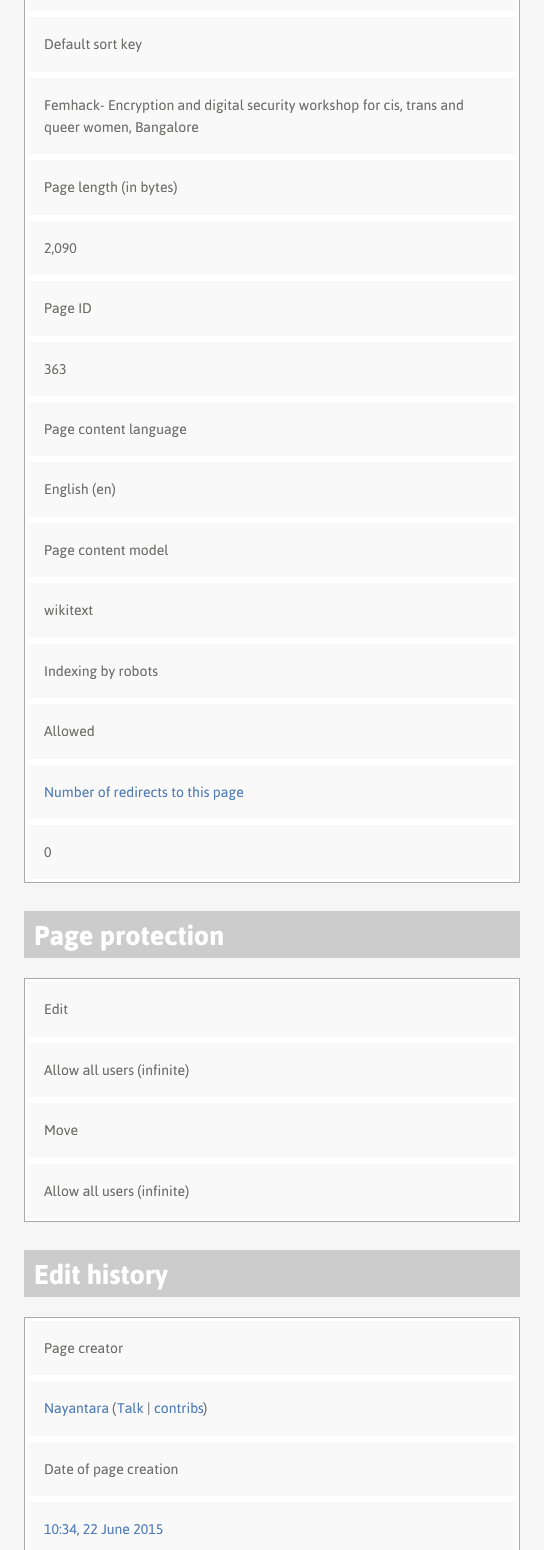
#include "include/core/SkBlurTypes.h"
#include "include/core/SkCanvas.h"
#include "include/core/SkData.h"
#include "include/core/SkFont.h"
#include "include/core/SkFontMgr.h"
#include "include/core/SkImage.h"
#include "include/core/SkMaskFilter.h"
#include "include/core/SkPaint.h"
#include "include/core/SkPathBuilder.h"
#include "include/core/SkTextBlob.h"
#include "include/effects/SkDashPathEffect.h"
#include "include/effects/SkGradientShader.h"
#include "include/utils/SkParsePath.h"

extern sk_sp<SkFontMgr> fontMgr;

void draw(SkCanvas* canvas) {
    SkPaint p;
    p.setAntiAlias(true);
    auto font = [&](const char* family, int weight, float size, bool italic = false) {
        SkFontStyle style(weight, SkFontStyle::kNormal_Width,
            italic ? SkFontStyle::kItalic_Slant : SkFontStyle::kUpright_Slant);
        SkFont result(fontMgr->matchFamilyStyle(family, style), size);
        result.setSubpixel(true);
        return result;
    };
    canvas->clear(0xFFF6F6F6);
    {
        const struct { float l, t, r, b; SkColor color; } items[] = {
            {28, 0, 516, 879, 0xFFF9F9F9},
            {519, 0, 520, 883, 0xFFAAAAAA},
            {24, 882, 520, 883, 0xFFAAAAAA},
            {24, 0, 25, 883, 0xFFAAAAAA},
        };
        for (auto [l, t, r, b, color] : items) {
            p.setColor(color);
            canvas->drawRect(SkRect::MakeLTRB(l, t, r, b), p);
        }
    }
    p.setStyle(SkPaint::kStroke_Style);
    p.setStrokeWidth(3);
    p.setColor(0xFFFFFFFF);
    canvas->drawRect(SkRect::MakeLTRB(26.5f, -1.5f, 517.5f, 12.5f), p);
    canvas->drawRect(SkRect::MakeLTRB(26.5f, 15.5f, 517.5f, 73.5f), p);
    auto font1 = font("Asap", 400, 14);
    p.setStyle(SkPaint::kFill_Style);
    p.setColor(0xFF6C6C6B);
    canvas->drawString("Default sort key", 44, 49, font1, p);
    p.setStyle(SkPaint::kStroke_Style);
    p.setColor(0xFFFFFFFF);
    canvas->drawRect(SkRect::MakeLTRB(26.5f, 76.5f, 517.5f, 155.5f), p);
    p.setStyle(SkPaint::kFill_Style);
    p.setColor(0xFF6C6C6B);
    canvas->drawString("Femhack- Encryption and digital security workshop for cis, trans and", 44, 110, font1, p);
    canvas->drawString("queer women, Bangalore", 44, 132, font1, p);
    p.setStyle(SkPaint::kStroke_Style);
    p.setColor(0xFFFFFFFF);
    canvas->drawRect(SkRect::MakeLTRB(26.5f, 158.5f, 517.5f, 216.5f), p);
    p.setStyle(SkPaint::kFill_Style);
    p.setColor(0xFF6C6C6B);
    canvas->drawString("Page length (in bytes)", 44, 192, font1, p);
    p.setStyle(SkPaint::kStroke_Style);
    p.setColor(0xFFFFFFFF);
    canvas->drawRect(SkRect::MakeLTRB(26.5f, 219.5f, 517.5f, 276.5f), p);
    p.setStyle(SkPaint::kFill_Style);
    p.setColor(0xFF6C6C6B);
    canvas->drawString("2,090", 44, 253, font1, p);
    p.setStyle(SkPaint::kStroke_Style);
    p.setColor(0xFFFFFFFF);
    canvas->drawRect(SkRect::MakeLTRB(26.5f, 279.5f, 517.5f, 337.5f), p);
    p.setStyle(SkPaint::kFill_Style);
    p.setColor(0xFF6C6C6B);
    canvas->drawString("Page ID", 44, 313, font1, p);
    p.setStyle(SkPaint::kStroke_Style);
    p.setColor(0xFFFFFFFF);
    canvas->drawRect(SkRect::MakeLTRB(26.5f, 340.5f, 517.5f, 397.5f), p);
    p.setStyle(SkPaint::kFill_Style);
    p.setColor(0xFF6C6C6B);
    canvas->drawString("363", 44, 374, font1, p);
    p.setStyle(SkPaint::kStroke_Style);
    p.setColor(0xFFFFFFFF);
    canvas->drawRect(SkRect::MakeLTRB(26.5f, 400.5f, 517.5f, 457.5f), p);
    p.setStyle(SkPaint::kFill_Style);
    p.setColor(0xFF6C6C6B);
    canvas->drawString("Page content language", 44, 434, font1, p);
    p.setStyle(SkPaint::kStroke_Style);
    p.setColor(0xFFFFFFFF);
    canvas->drawRect(SkRect::MakeLTRB(26.5f, 460.5f, 517.5f, 518.5f), p);
    p.setStyle(SkPaint::kFill_Style);
    p.setColor(0xFF6C6C6B);
    canvas->drawString("English (en)", 44, 494, font1, p);
    p.setStyle(SkPaint::kStroke_Style);
    p.setColor(0xFFFFFFFF);
    canvas->drawRect(SkRect::MakeLTRB(26.5f, 521.5f, 517.5f, 578.5f), p);
    p.setStyle(SkPaint::kFill_Style);
    p.setColor(0xFF6C6C6B);
    canvas->drawString("Page content model", 44, 555, font1, p);
    p.setStyle(SkPaint::kStroke_Style);
    p.setColor(0xFFFFFFFF);
    canvas->drawRect(SkRect::MakeLTRB(26.5f, 581.5f, 517.5f, 639.5f), p);
    p.setStyle(SkPaint::kFill_Style);
    p.setColor(0xFF6C6C6B);
    canvas->drawString("wikitext", 44, 615, font1, p);
    p.setStyle(SkPaint::kStroke_Style);
    p.setColor(0xFFFFFFFF);
    canvas->drawRect(SkRect::MakeLTRB(26.5f, 642.5f, 517.5f, 699.5f), p);
    p.setStyle(SkPaint::kFill_Style);
    p.setColor(0xFF6C6C6B);
    canvas->drawString("Indexing by robots", 44, 676, font1, p);
    p.setStyle(SkPaint::kStroke_Style);
    p.setColor(0xFFFFFFFF);
    canvas->drawRect(SkRect::MakeLTRB(26.5f, 702.5f, 517.5f, 760.5f), p);
    p.setStyle(SkPaint::kFill_Style);
    p.setColor(0xFF6C6C6B);
    canvas->drawString("Allowed", 44, 736, font1, p);
    p.setStyle(SkPaint::kStroke_Style);
    p.setColor(0xFFFFFFFF);
    canvas->drawRect(SkRect::MakeLTRB(26.5f, 763.5f, 517.5f, 820.5f), p);
    p.setStyle(SkPaint::kFill_Style);
    p.setColor(0xFF4E7BB8);
    canvas->drawString("Number of redirects to this page", 44, 797, font1, p);
    p.setStyle(SkPaint::kStroke_Style);
    p.setColor(0xFFFFFFFF);
    canvas->drawRect(SkRect::MakeLTRB(26.5f, 823.5f, 517.5f, 880.5f), p);
    p.setStyle(SkPaint::kFill_Style);
    p.setColor(0xFF6C6C6B);
    canvas->drawString("0", 44, 857, font1, p);
    p.setColor(0xFFCCCCCC);
    canvas->drawRect(SkRect::MakeLTRB(24, 911, 520, 958), p);
    auto font2 = font("Asap", 700, 27);
    p.setColor(0xFFFFFFFF);
    canvas->drawString("Page protection", 34, 945, font2, p);
    {
        const struct { float l, t, r, b; SkColor color; } items[] = {
            {28, 982, 516, 1218, 0xFFF9F9F9},
            {24, 978, 520, 979, 0xFFAAAAAA},
            {519, 978, 520, 1222, 0xFFAAAAAA},
            {24, 1221, 520, 1222, 0xFFAAAAAA},
            {24, 978, 25, 1222, 0xFFAAAAAA},
        };
        for (auto [l, t, r, b, color] : items) {
            p.setColor(color);
            canvas->drawRect(SkRect::MakeLTRB(l, t, r, b), p);
        }
    }
    p.setStyle(SkPaint::kStroke_Style);
    p.setColor(0xFFFFFFFF);
    canvas->drawRect(SkRect::MakeLTRB(26.5f, 980.5f, 517.5f, 1038.5f), p);
    p.setStyle(SkPaint::kFill_Style);
    p.setColor(0xFF6C6C6B);
    canvas->drawString("Edit", 44, 1014, font1, p);
    p.setStyle(SkPaint::kStroke_Style);
    p.setColor(0xFFFFFFFF);
    canvas->drawRect(SkRect::MakeLTRB(26.5f, 1041.5f, 517.5f, 1098.5f), p);
    p.setStyle(SkPaint::kFill_Style);
    p.setColor(0xFF6C6C6B);
    canvas->drawString("Allow all users (infinite)", 44, 1075, font1, p);
    p.setStyle(SkPaint::kStroke_Style);
    p.setColor(0xFFFFFFFF);
    canvas->drawRect(SkRect::MakeLTRB(26.5f, 1101.5f, 517.5f, 1159.5f), p);
    p.setStyle(SkPaint::kFill_Style);
    p.setColor(0xFF6C6C6B);
    canvas->drawString("Move", 44, 1135, font1, p);
    p.setStyle(SkPaint::kStroke_Style);
    p.setColor(0xFFFFFFFF);
    canvas->drawRect(SkRect::MakeLTRB(26.5f, 1162.5f, 517.5f, 1219.5f), p);
    p.setStyle(SkPaint::kFill_Style);
    p.setColor(0xFF6C6C6B);
    canvas->drawString("Allow all users (infinite)", 44, 1196, font1, p);
    p.setColor(0xFFCCCCCC);
    canvas->drawRect(SkRect::MakeLTRB(24, 1250, 520, 1297), p);
    p.setColor(0xFFFFFFFF);
    canvas->drawString("Edit history", 34, 1284, font2, p);
    {
        const struct { float l, t, r, b; SkColor color; } items[] = {
            {28, 1321, 516, 1550, 0xFFF9F9F9},
            {24, 1317, 520, 1318, 0xFFAAAAAA},
            {519, 1317, 520, 1550, 0xFFAAAAAA},
            {24, 1317, 25, 1550, 0xFFAAAAAA},
        };
        for (auto [l, t, r, b, color] : items) {
            p.setColor(color);
            canvas->drawRect(SkRect::MakeLTRB(l, t, r, b), p);
        }
    }
    p.setStyle(SkPaint::kStroke_Style);
    p.setColor(0xFFFFFFFF);
    canvas->drawRect(SkRect::MakeLTRB(26.5f, 1319.5f, 517.5f, 1376.5f), p);
    p.setStyle(SkPaint::kFill_Style);
    p.setColor(0xFF6C6C6B);
    canvas->drawString("Page creator", 44, 1353, font1, p);
    p.setStyle(SkPaint::kStroke_Style);
    p.setColor(0xFFFFFFFF);
    canvas->drawRect(SkRect::MakeLTRB(26.5f, 1379.5f, 517.5f, 1437.5f), p);
    p.setStyle(SkPaint::kFill_Style);
    p.setColor(0xFF4E7BB8);
    canvas->drawString("Nayantara", 44, 1413, font1, p);
    p.setColor(0xFF6C6C6B);
    canvas->drawString("(", 112, 1413, font1, p);
    p.setColor(0xFF4E7BB8);
    canvas->drawString("Talk", 117, 1413, font1, p);
    p.setColor(0xFF6C6C6B);
    canvas->drawString("|", 147, 1413, font1, p);
    p.setColor(0xFF4E7BB8);
    canvas->drawString("contribs", 154, 1413, font1, p);
    p.setColor(0xFF6C6C6B);
    canvas->drawString(")", 203, 1413, font1, p);
    p.setStyle(SkPaint::kStroke_Style);
    p.setColor(0xFFFFFFFF);
    canvas->drawRect(SkRect::MakeLTRB(26.5f, 1440.5f, 517.5f, 1497.5f), p);
    p.setStyle(SkPaint::kFill_Style);
    p.setColor(0xFF6C6C6B);
    canvas->drawString("Date of page creation", 44, 1474, font1, p);
    p.setStyle(SkPaint::kStroke_Style);
    p.setColor(0xFFFFFFFF);
    canvas->drawRect(SkRect::MakeLTRB(26.5f, 1500.5f, 517.5f, 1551.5f), p);
    p.setStyle(SkPaint::kFill_Style);
    p.setColor(0xFF4E7BB8);
    canvas->drawString("10:34, 22 June 2015", 44, 1534, font1, p);
}
